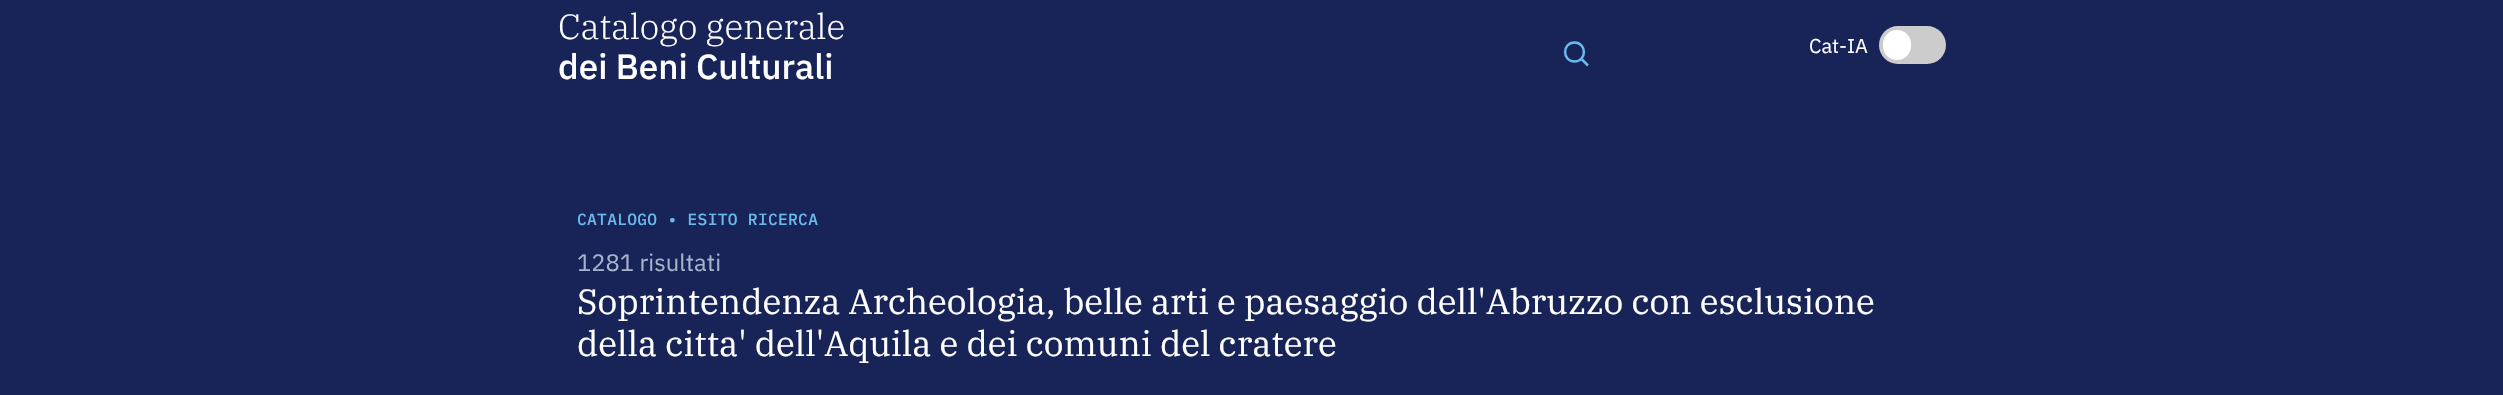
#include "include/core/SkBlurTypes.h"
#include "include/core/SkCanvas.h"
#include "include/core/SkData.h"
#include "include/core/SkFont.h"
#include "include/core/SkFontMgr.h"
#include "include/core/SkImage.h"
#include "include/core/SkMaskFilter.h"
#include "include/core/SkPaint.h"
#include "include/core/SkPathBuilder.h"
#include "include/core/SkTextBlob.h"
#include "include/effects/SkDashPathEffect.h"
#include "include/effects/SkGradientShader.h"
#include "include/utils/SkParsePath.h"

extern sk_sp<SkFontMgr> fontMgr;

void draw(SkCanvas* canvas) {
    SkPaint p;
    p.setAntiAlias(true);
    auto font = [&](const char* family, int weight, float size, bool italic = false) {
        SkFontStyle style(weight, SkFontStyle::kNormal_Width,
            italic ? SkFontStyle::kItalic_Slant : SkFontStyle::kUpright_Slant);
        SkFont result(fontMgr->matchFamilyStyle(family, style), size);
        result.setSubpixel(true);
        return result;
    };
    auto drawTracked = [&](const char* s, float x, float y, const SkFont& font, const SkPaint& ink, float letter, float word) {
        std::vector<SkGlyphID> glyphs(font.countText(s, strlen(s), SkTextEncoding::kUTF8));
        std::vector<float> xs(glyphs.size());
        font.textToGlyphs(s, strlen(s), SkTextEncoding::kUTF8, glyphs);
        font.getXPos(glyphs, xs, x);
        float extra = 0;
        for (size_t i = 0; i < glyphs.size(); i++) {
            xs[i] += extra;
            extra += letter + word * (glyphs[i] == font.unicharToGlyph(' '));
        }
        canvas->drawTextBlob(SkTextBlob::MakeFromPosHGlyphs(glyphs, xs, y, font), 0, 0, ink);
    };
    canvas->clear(0xFF182358);
    auto font1 = font("IBM Plex Serif", 300, 35);
    p.setColor(0xFFFFFFFF);
    canvas->drawString("Catalogo generale", 558, 39, font1, p);
    auto font2 = font("IBM Plex Sans", 500, 35);
    canvas->drawString("dei Beni Culturali", 558, 79, font2, p);
    p.setStyle(SkPaint::kStroke_Style);
    p.setStrokeWidth(2.5f);
    p.setColor(0xFF69B9EC);
    canvas->drawPath(SkPathBuilder().moveTo(1574.5f, 61.5f).cubicTo(1587, 61.5f, 1587, 42.5f, 1574.5f, 42.5f).cubicTo(1562, 42.5f, 1562, 61.5f, 1574.5f, 61.5f).close().moveTo(1582, 59.5f).lineTo(1588, 65.5f).detach(), p);
    auto font3 = font("IBM Plex Sans", 400, 20);
    p.setStyle(SkPaint::kFill_Style);
    p.setColor(0xFFFFFFFF);
    canvas->drawString("Cat-IA", 1809, 53, font3, p);
    p.setColor(0xFFCCCCCC);
    canvas->drawRoundRect(SkRect::MakeLTRB(1879, 26, 1946, 64), 19, 19, p);
    p.setColor(0xFFFFFFFF);
    canvas->drawRoundRect(SkRect::MakeLTRB(1883, 30, 1911, 60), 14, 14, p);
    auto font4 = font("IBM Plex Mono", 500, 16.25f);
    p.setColor(0xFF69B9EC);
    drawTracked("CATALOGO • ESITO RICERCA", 577, 225, font4, p, 0.3f, 0);
    auto font5 = font("IBM Plex Sans", 400, 23.75f);
    p.setColor(0xFFA7B2CC);
    canvas->drawString("1281 risultati", 577, 271, font5, p);
    auto font6 = font("IBM Plex Serif", 400, 35);
    p.setColor(0xFFFFFFFF);
    canvas->drawString("Soprintendenza Archeologia, belle arti e paesaggio dell'Abruzzo con esclusione", 577, 314, font6, p);
    canvas->drawString("della citta' dell'Aquila e dei comuni del cratere", 577, 356, font6, p);
}
